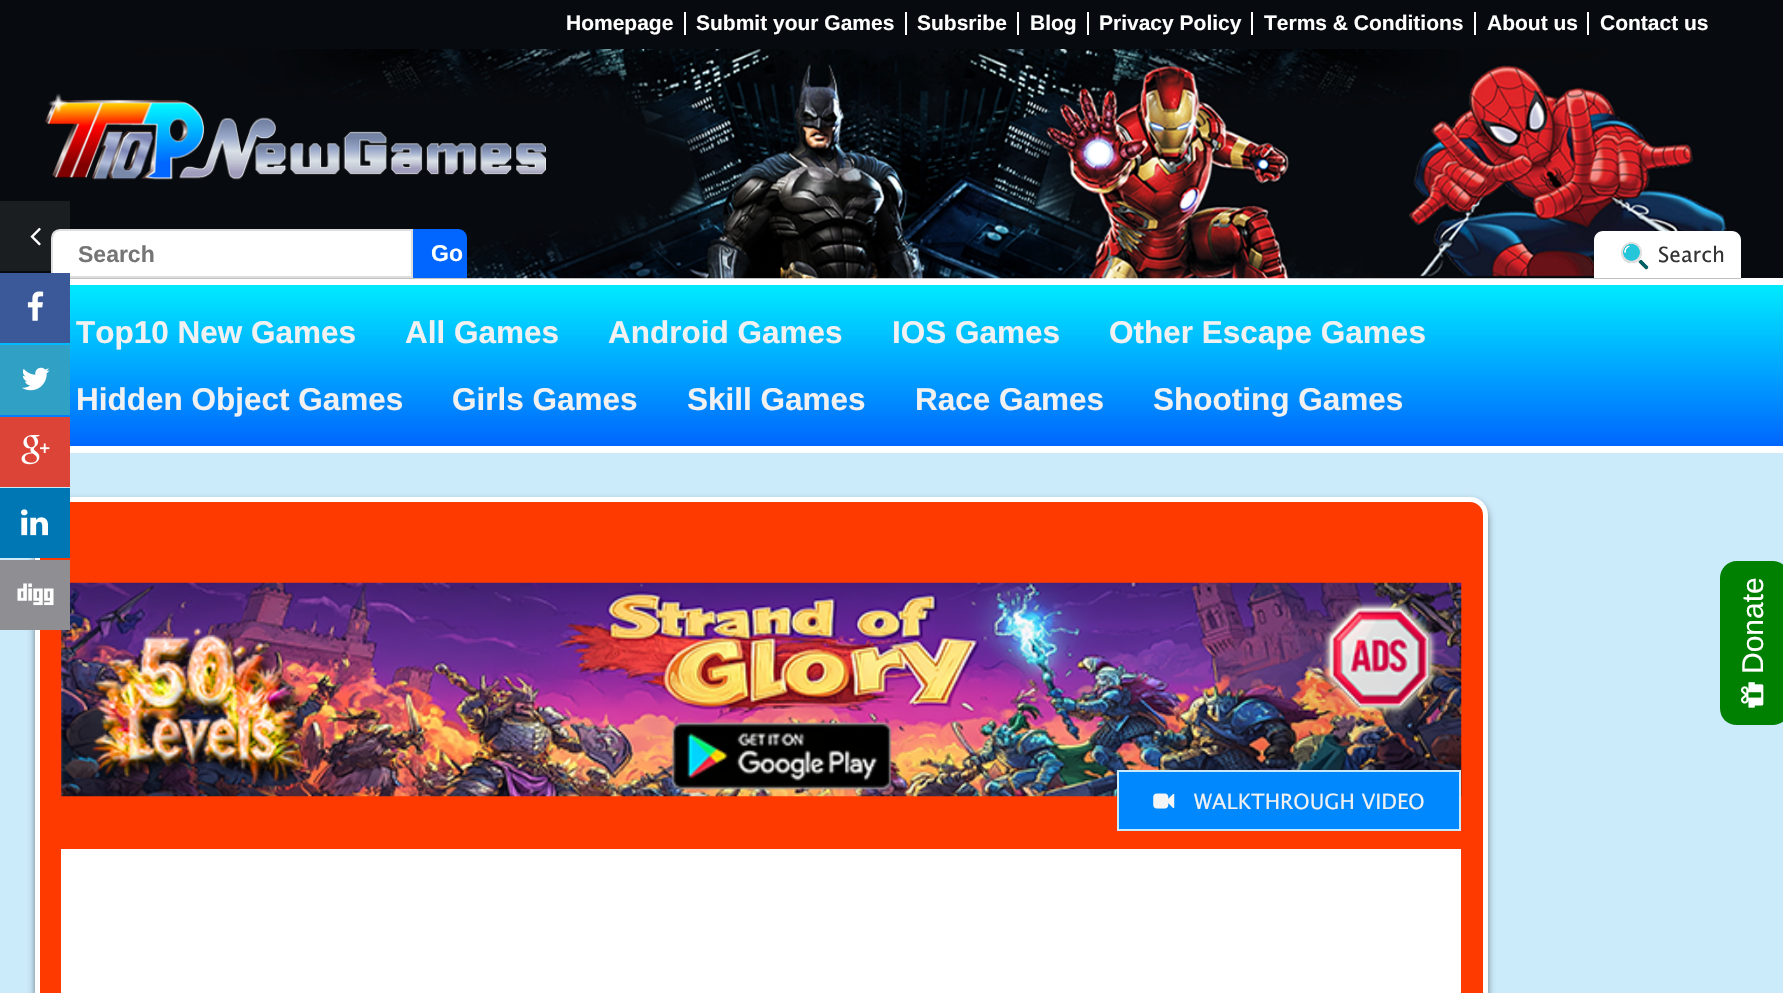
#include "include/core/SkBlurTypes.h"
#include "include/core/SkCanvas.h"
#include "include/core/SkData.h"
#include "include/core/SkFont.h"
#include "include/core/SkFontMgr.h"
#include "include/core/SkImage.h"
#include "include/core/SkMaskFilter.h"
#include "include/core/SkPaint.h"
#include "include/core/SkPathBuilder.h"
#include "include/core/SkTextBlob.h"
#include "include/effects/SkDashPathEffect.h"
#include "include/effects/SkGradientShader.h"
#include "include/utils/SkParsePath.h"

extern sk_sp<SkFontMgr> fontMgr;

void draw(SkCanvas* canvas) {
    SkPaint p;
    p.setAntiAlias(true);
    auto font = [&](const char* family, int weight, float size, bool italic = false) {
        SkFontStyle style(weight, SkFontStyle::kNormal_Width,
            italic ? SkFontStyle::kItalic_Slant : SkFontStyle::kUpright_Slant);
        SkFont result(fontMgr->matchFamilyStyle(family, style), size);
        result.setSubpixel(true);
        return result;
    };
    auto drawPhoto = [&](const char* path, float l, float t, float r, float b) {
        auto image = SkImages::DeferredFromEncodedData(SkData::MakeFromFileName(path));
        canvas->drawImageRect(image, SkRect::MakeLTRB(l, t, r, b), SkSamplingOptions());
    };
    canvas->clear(0xFFCBEAFA);
    p.setColor(0xFF070A0E);
    canvas->drawRect(SkRect::MakeLTRB(0, 0, 1783, 278), p);
    auto font1 = font("Liberation Sans", 700, 21);
    p.setColor(0xFFFFFFFF);
    canvas->drawString("Homepage", 566, 30, font1, p);
    canvas->drawRect(SkRect::MakeLTRB(684, 12, 686, 35), p);
    canvas->drawString("Submit your Games", 696, 30, font1, p);
    canvas->drawRect(SkRect::MakeLTRB(905, 12, 907, 35), p);
    canvas->drawString("Subsribe", 917, 30, font1, p);
    canvas->drawRect(SkRect::MakeLTRB(1017, 12, 1019, 35), p);
    canvas->drawString("Blog", 1030, 30, font1, p);
    canvas->drawRect(SkRect::MakeLTRB(1087, 12, 1089, 35), p);
    canvas->drawString("Privacy Policy", 1099, 30, font1, p);
    canvas->drawRect(SkRect::MakeLTRB(1251, 12, 1253, 35), p);
    canvas->drawString("Terms & Conditions", 1264, 30, font1, p);
    canvas->drawRect(SkRect::MakeLTRB(1474, 12, 1476, 35), p);
    canvas->drawString("About us", 1487, 30, font1, p);
    canvas->drawRect(SkRect::MakeLTRB(1587, 12, 1589, 35), p);
    canvas->drawString("Contact us", 1600, 30, font1, p);
    canvas->drawRect(SkRect::MakeLTRB(70, 278, 1783, 285), p);
    drawPhoto("media/1.png", 43, 49, 1742, 279);
    drawPhoto("media/2.png", 44, 93, 546, 180);
    canvas->drawPath(SkPathBuilder().moveTo(60, 230).lineTo(412, 230).lineTo(412, 277).lineTo(52, 277).lineTo(52, 238).cubicTo(52, 233.5f, 55.5f, 230, 60, 230).close().detach(), p);
    p.setStyle(SkPaint::kStroke_Style);
    p.setStrokeWidth(2);
    p.setColor(0xFFDDDDDD);
    canvas->drawPath(SkPathBuilder().moveTo(60, 230).lineTo(412, 230).lineTo(412, 277).lineTo(52, 277).lineTo(52, 238).cubicTo(52, 233.5f, 55.5f, 230, 60, 230).close().detach(), p);
    auto font2 = font("Liberation Sans", 700, 23);
    p.setStyle(SkPaint::kFill_Style);
    p.setColor(0xFF757575);
    canvas->drawString("Search", 78, 262, font2, p);
    p.setColor(0xFF0066FF);
    canvas->drawPath(SkPathBuilder().moveTo(413, 229).lineTo(458, 229).cubicTo(463, 229, 467, 233, 467, 238).lineTo(467, 278).lineTo(413, 278).close().detach(), p);
    p.setColor(0xFFFFFFFF);
    canvas->drawString("Go", 431, 261, font2, p);
    canvas->drawPath(SkPathBuilder().moveTo(1603, 231).lineTo(1732, 231).cubicTo(1737, 231, 1741, 235, 1741, 240).lineTo(1741, 278).lineTo(1594, 278).lineTo(1594, 240).cubicTo(1594, 235, 1598, 231, 1603, 231).close().detach(), p);
    drawPhoto("media/3.png", 1621, 242, 1649, 270);
    auto font3 = font("Lucida Grande", 500, 21);
    p.setColor(0xFF333333);
    canvas->drawString("Search", 1658, 262, font3, p);
    p.setColor(0x14FFFFFF);
    canvas->drawRect(SkRect::MakeLTRB(0, 201, 70, 271), p);
    drawPhoto("media/4.png", 30, 227, 41, 246);
    {
        const SkColor colors[] = {0xFF00E8FF, 0xFF0066FF};
        const float stops[] = {0.02f, 1};
        const SkPoint ends[] = {{892, 285}, {892, 446}};
        p.setShader(SkGradientShader::MakeLinear(ends, colors, stops, 2, SkTileMode::kClamp));
        p.setAlpha(255);
    }
    canvas->drawRect(SkRect::MakeLTRB(0, 285, 1783, 446), p);
    p.setShader(nullptr);
    p.setColor(0xFF3B5998);
    canvas->drawRect(SkRect::MakeLTRB(0, 273, 70, 343), p);
    drawPhoto("media/5.png", 27, 291, 44, 321);
    p.setColor(0xFF30A0C4);
    canvas->drawRect(SkRect::MakeLTRB(0, 345, 70, 415), p);
    drawPhoto("media/6.png", 22, 367, 50, 391);
    p.setColor(0xFFDB4437);
    canvas->drawRect(SkRect::MakeLTRB(0, 417, 70, 487), p);
    drawPhoto("media/7.png", 21, 435, 50, 465);
    p.setColor(0x75000000);
    p.setMaskFilter(SkMaskFilter::MakeBlur(kNormal_SkBlurStyle, 3.5f));
    canvas->drawRoundRect(SkRect::MakeLTRB(35, 501, 1488, 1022), 18, 18, p);
    p.setMaskFilter(nullptr);
    p.setColor(0xFFFF3A00);
    canvas->drawRoundRect(SkRect::MakeLTRB(37.5f, 499.5f, 1485.5f, 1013.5f), 15.5f, 15.5f, p);
    p.setStyle(SkPaint::kStroke_Style);
    p.setStrokeWidth(5);
    p.setColor(0xFFFFFFFF);
    canvas->drawRoundRect(SkRect::MakeLTRB(37.5f, 499.5f, 1485.5f, 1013.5f), 15.5f, 15.5f, p);
    p.setStyle(SkPaint::kFill_Style);
    p.setColor(0xFF0077B5);
    canvas->drawRect(SkRect::MakeLTRB(0, 488, 70, 558), p);
    drawPhoto("media/8.png", 21, 509, 48, 536);
    drawPhoto("media/11.png", 61, 582, 1462, 797);
    p.setColor(0xFF8E8E93);
    canvas->drawRect(SkRect::MakeLTRB(0, 560, 70, 630), p);
    drawPhoto("media/9.png", 17, 583, 54, 606);
    p.setColor(0xFFFFFFFF);
    canvas->drawRect(SkRect::MakeLTRB(70, 446, 1783, 453), p);
    auto font4 = font("Liberation Sans", 700, 31.5f);
    p.setColor(0xFFF1F1F1);
    {
        const struct { const char* s; float x, y; } items[] = {
            {"Top10 New Games", 76, 343},
            {"All Games", 405, 343},
            {"Android Games", 608, 343},
            {"IOS Games", 892, 343},
            {"Other Escape Games", 1109, 343},
            {"Hidden Object Games", 76, 410},
            {"Girls Games", 452, 410},
            {"Skill Games", 687, 410},
            {"Race Games", 915, 410},
            {"Shooting Games", 1153, 410},
        };
        for (auto [s, x, y] : items) {
            canvas->drawString(s, x, y, font4, p);
        }
    }
    p.setColor(0xFF008000);
    canvas->drawPath(SkPathBuilder().moveTo(1720, 708).lineTo(1720, 578).cubicTo(1720, 569, 1727, 561, 1737, 561).lineTo(1773, 561).cubicTo(1782, 561, 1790, 569, 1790, 578).lineTo(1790, 708).cubicTo(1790, 718, 1782, 725, 1773, 725).lineTo(1737, 725).cubicTo(1727, 725, 1720, 718, 1720, 708).close().detach(), p);
    auto font5 = font("Liberation Sans", 400, 30);
    p.setColor(0xFFFFFFFF);
    canvas->save();
    canvas->rotate(-90, 1763, 674);
    canvas->drawString("Donate", 1763, 674, font5, p);
    canvas->restore();
    drawPhoto("media/10.png", 1741, 682, 1764, 708);
    p.setColor(0xFF0089FF);
    canvas->drawRect(SkRect::MakeLTRB(1118, 771, 1460, 830), p);
    p.setStyle(SkPaint::kStroke_Style);
    p.setStrokeWidth(2);
    p.setColor(0xFFCBEAFA);
    canvas->drawRect(SkRect::MakeLTRB(1118, 771, 1460, 830), p);
    drawPhoto("media/12.png", 1153, 793, 1175, 809);
    p.setStyle(SkPaint::kFill_Style);
    p.setColor(0xFFF1F1F1);
    canvas->drawString("WALKTHROUGH VIDEO", 1194, 809, font3, p);
    p.setColor(0xFFFFFFFF);
    canvas->drawRect(SkRect::MakeLTRB(61, 849, 1461, 993), p);
}
